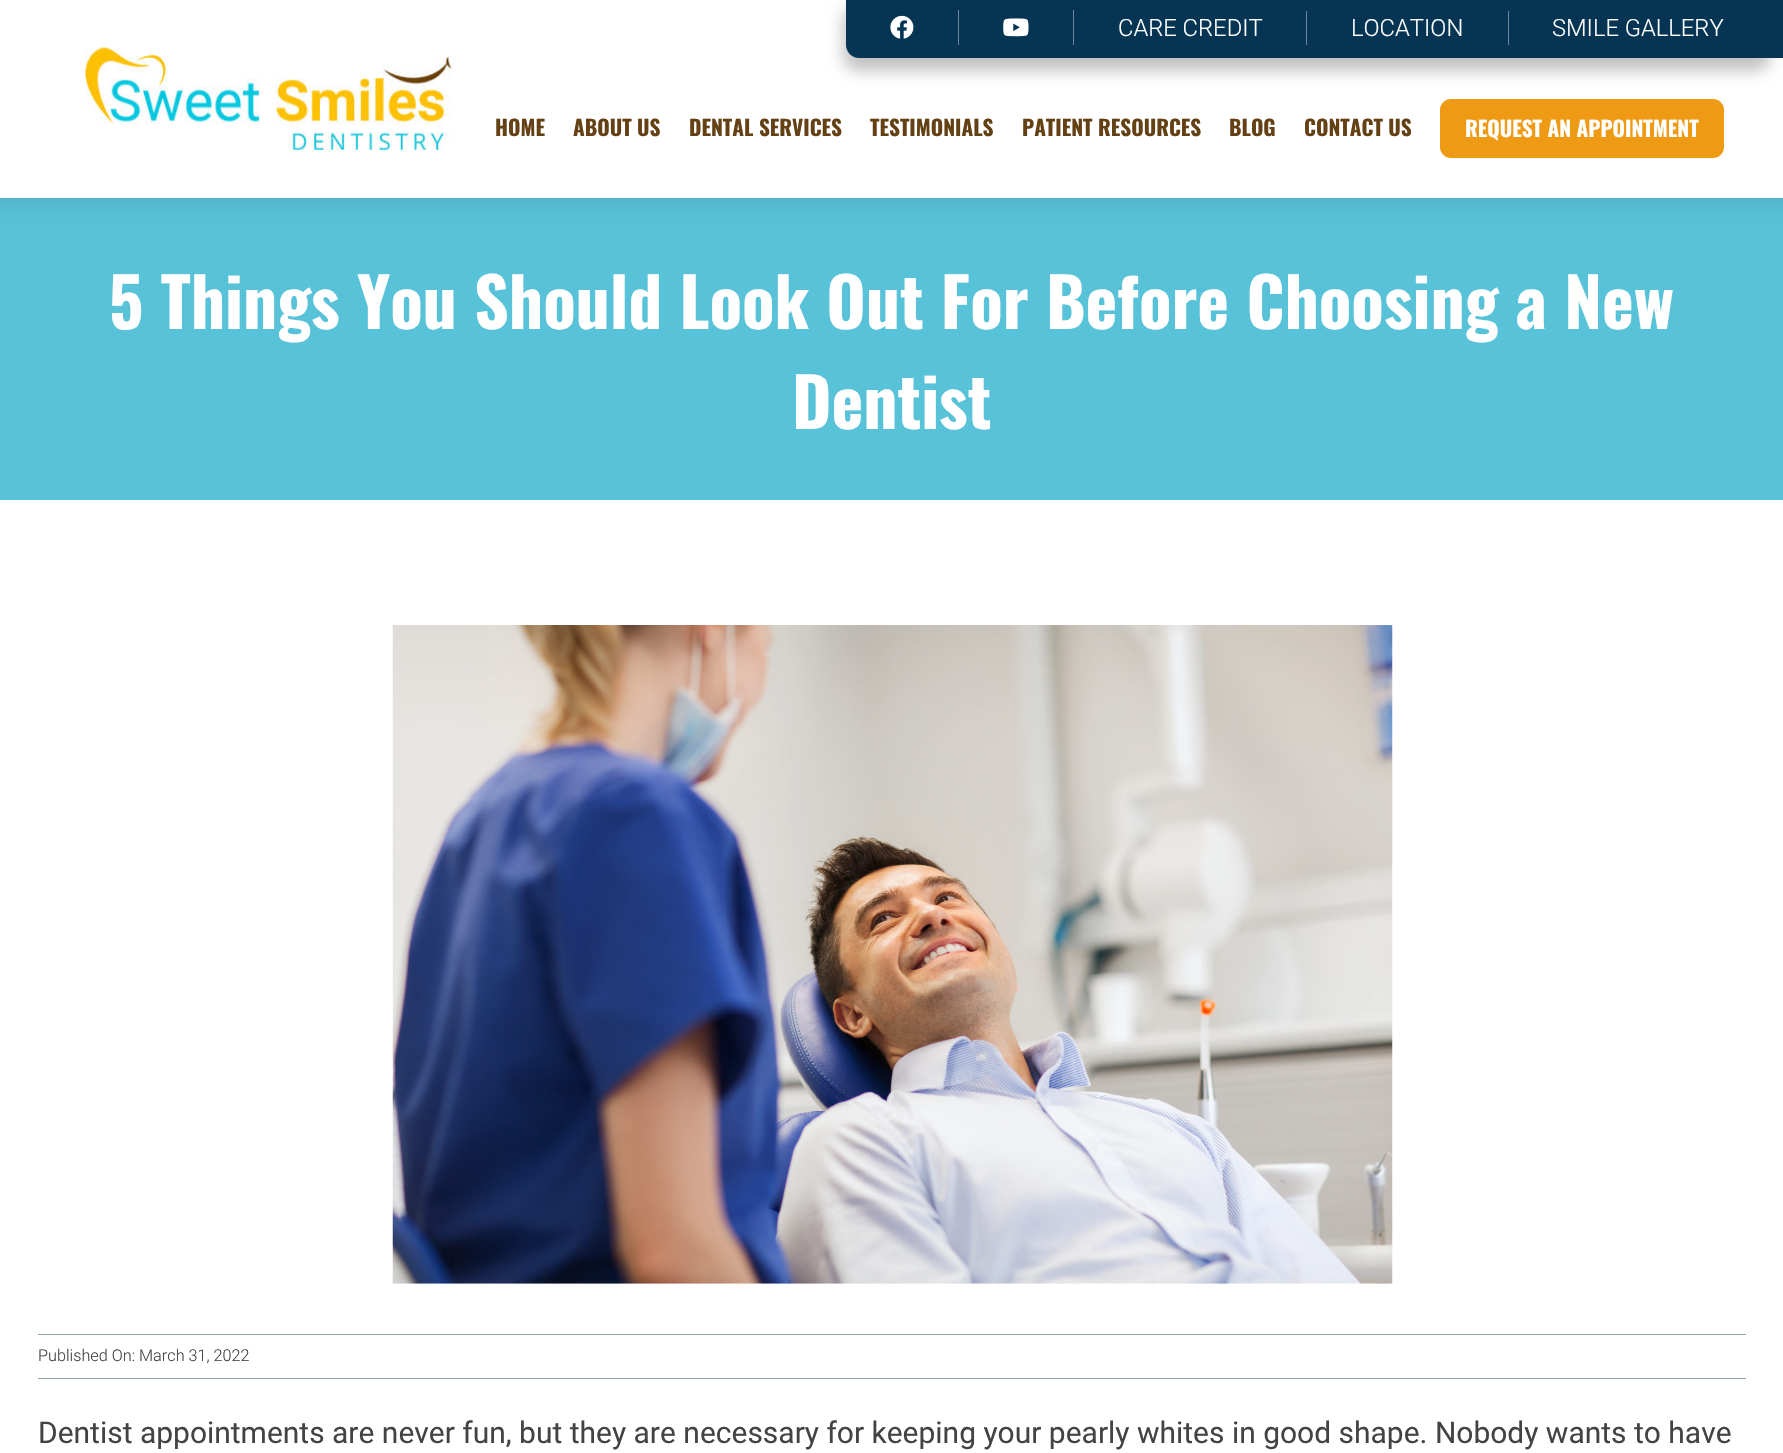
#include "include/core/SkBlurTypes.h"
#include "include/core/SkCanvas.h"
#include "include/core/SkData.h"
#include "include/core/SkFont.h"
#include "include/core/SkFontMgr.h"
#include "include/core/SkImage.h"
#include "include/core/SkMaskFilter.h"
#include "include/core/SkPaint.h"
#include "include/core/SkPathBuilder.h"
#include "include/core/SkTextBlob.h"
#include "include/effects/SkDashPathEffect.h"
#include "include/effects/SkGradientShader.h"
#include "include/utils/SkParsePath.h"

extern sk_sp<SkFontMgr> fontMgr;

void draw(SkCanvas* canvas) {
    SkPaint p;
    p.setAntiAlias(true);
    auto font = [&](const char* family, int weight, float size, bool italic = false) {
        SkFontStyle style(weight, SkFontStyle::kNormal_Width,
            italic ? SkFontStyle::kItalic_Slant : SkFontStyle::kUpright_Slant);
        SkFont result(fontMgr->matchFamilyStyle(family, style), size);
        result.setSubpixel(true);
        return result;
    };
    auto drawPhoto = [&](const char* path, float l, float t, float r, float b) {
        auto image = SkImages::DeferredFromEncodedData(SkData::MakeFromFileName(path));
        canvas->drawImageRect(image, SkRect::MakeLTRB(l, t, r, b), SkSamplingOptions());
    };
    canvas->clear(0xFFFFFFFF);
    p.setColor(0xFF57C2D8);
    canvas->drawRect(SkRect::MakeLTRB(0, 198, 1783, 500), p);
    p.setColor(0x12000000);
    p.setMaskFilter(SkMaskFilter::MakeBlur(kNormal_SkBlurStyle, 7.5f));
    canvas->drawRect(SkRect::MakeLTRB(-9, -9, 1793, 206), p);
    p.setMaskFilter(nullptr);
    p.setColor(0xFFFFFFFF);
    canvas->drawRect(SkRect::MakeLTRB(0, 0, 1783, 198), p);
    drawPhoto("media/1.png", 85, 47, 452, 150);
    p.setColor(0x3D000000);
    p.setMaskFilter(SkMaskFilter::MakeBlur(kNormal_SkBlurStyle, 7.5f));
    canvas->drawRoundRect(SkRect::MakeLTRB(843, 6, 1771, 71), 16, 16, p);
    p.setMaskFilter(nullptr);
    p.setColor(0xFF063453);
    canvas->drawPath(SkPathBuilder().moveTo(846, 0).lineTo(1768, 0).lineTo(1768, 58).lineTo(859, 58).cubicTo(852, 58, 846, 52, 846, 45).close().detach(), p);
    p.setColor(0xFF6C879A);
    canvas->drawRect(SkRect::MakeLTRB(958, 10, 959, 45), p);
    drawPhoto("media/2.png", 890, 15, 914, 39);
    canvas->drawRect(SkRect::MakeLTRB(1073, 10, 1074, 45), p);
    drawPhoto("media/3.png", 1003, 18, 1029, 37);
    canvas->drawRect(SkRect::MakeLTRB(1306, 11, 1307, 45), p);
    auto font1 = font("Roboto", 300, 23.75f);
    p.setColor(0xFFFFFFFF);
    canvas->drawString("CARE CREDIT", 1118, 36, font1, p);
    p.setColor(0xFF6C879A);
    canvas->drawRect(SkRect::MakeLTRB(1508, 11, 1509, 45), p);
    p.setColor(0xFFFFFFFF);
    canvas->drawString("LOCATION", 1351, 36, font1, p);
    canvas->drawString("SMILE GALLERY", 1552, 36, font1, p);
    p.setColor(0xFF063453);
    canvas->drawRect(SkRect::MakeLTRB(1768, 0, 1783, 58), p);
    auto font2 = font("Oswald", 700, 21.25f);
    p.setColor(0xFF644015);
    {
        const struct { const char* s; float x, y; } items[] = {
            {"HOME", 495, 136},
            {"ABOUT US", 573, 136},
            {"DENTAL SERVICES", 689, 136},
            {"TESTIMONIALS", 870, 136},
            {"PATIENT RESOURCES", 1022, 136},
            {"BLOG", 1229, 136},
            {"CONTACT US", 1304, 136},
        };
        for (auto [s, x, y] : items) {
            canvas->drawString(s, x, y, font2, p);
        }
    }
    p.setColor(0xFFEE9A14);
    canvas->drawRoundRect(SkRect::MakeLTRB(1440, 99, 1724, 158), 11, 11, p);
    p.setColor(0xFFFFFFFF);
    canvas->drawString("REQUEST AN APPOINTMENT", 1465, 137, font2, p);
    auto font3 = font("Oswald", 700, 67.5f);
    canvas->drawString("5 Things You Should Look Out For Before Choosing a New", 109, 329, font3, p);
    canvas->drawString("Dentist", 792, 429, font3, p);
    drawPhoto("media/4.png", 392, 625, 1393, 1284);
    p.setColor(0xFF95A5A6);
    canvas->drawRect(SkRect::MakeLTRB(38, 1334, 1746, 1335), p);
    canvas->drawRect(SkRect::MakeLTRB(38, 1378, 1746, 1379), p);
    auto font4 = font("Roboto", 300, 16.25f);
    p.setColor(0xFF434343);
    canvas->drawString("Published On: March 31, 2022", 38, 1361, font4, p);
    auto font5 = font("Roboto", 400, 30);
    canvas->drawString("Dentist appointments are never fun, but they are necessary for keeping your pearly whites in good shape. Nobody wants to have", 38, 1443, font5, p);
}
